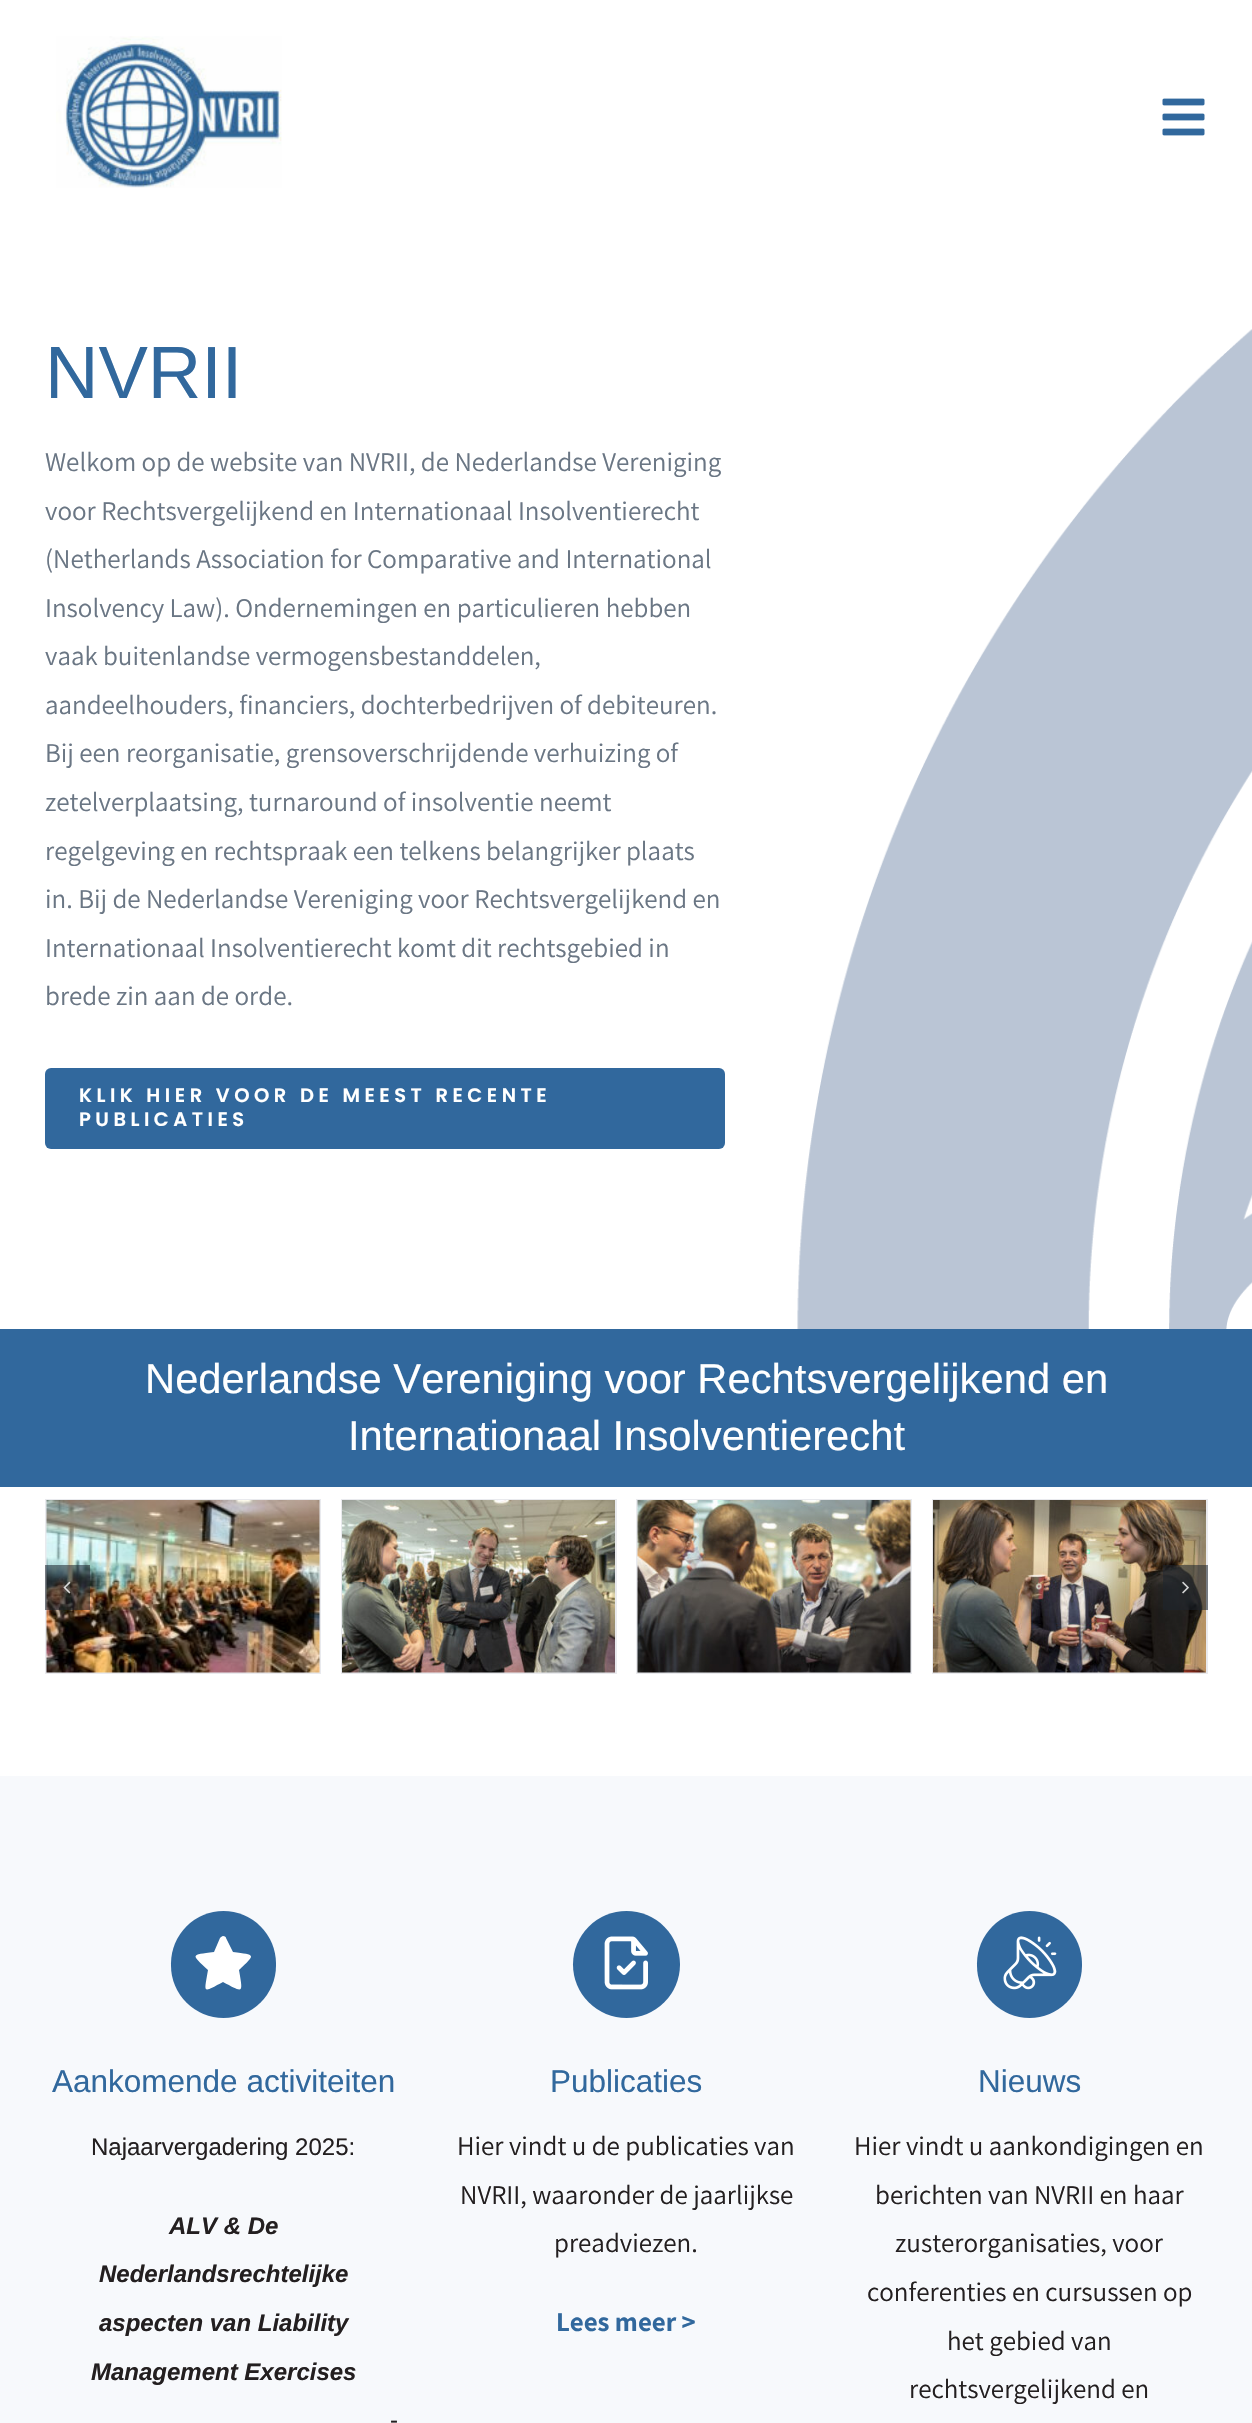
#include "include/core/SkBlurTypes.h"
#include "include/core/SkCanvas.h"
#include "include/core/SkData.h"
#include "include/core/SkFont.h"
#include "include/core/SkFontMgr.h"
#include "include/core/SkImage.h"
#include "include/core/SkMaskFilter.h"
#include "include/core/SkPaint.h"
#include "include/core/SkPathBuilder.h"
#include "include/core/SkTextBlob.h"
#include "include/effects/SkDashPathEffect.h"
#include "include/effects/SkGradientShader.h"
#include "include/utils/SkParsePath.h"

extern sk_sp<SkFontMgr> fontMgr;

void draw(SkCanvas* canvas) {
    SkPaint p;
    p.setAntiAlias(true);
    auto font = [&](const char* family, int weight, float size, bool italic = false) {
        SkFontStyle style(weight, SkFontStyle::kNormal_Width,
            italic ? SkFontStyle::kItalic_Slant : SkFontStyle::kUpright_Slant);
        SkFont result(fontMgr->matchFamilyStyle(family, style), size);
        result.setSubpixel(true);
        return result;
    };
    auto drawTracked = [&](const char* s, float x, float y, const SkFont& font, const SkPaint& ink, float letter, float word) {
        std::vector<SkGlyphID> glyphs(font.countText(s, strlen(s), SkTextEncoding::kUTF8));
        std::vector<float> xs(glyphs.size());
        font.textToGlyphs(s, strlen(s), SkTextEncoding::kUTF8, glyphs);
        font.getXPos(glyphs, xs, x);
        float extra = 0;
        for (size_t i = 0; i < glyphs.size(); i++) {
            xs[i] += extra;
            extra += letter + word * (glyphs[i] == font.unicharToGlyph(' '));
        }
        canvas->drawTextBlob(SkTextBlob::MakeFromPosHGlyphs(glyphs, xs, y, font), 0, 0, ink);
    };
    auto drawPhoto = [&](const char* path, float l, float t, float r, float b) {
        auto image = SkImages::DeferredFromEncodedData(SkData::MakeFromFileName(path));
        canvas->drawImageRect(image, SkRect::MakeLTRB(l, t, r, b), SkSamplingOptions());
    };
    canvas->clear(0xFFFFFFFF);
    drawPhoto("media/1.png", 56, 36, 282, 188);
    drawPhoto("media/2.png", 1162, 98, 1205, 136);
    drawPhoto("media/3.png", 797, 329, 1252, 1329);
    auto font1 = font("Liberation Sans", 400, 74);
    p.setColor(0xFF31689D);
    canvas->drawString("NVRII", 45, 398, font1, p);
    auto font2 = font("Assistant", 400, 27);
    p.setColor(0xFF6A7684);
    {
        const struct { const char* s; float x, y; } items[] = {
            {"Welkom op de website van NVRII, de Nederlandse Vereniging", 45, 471},
            {"voor Rechtsvergelijkend en Internationaal Insolventierecht", 45, 520},
            {"(Netherlands Association for Comparative and International", 45, 568},
            {"Insolvency Law). Ondernemingen en particulieren hebben", 45, 617},
            {"vaak buitenlandse vermogensbestanddelen,", 45, 665},
            {"aandeelhouders, financiers, dochterbedrijven of debiteuren.", 45, 714},
            {"Bij een reorganisatie, grensoverschrijdende verhuizing of", 45, 762},
            {"zetelverplaatsing, turnaround of insolventie neemt", 45, 811},
            {"regelgeving en rechtspraak een telkens belangrijker plaats", 45, 860},
            {"in. Bij de Nederlandse Vereniging voor Rechtsvergelijkend en", 45, 908},
            {"Internationaal Insolventierecht komt dit rechtsgebied in", 45, 957},
            {"brede zin aan de orde.", 45, 1005},
        };
        for (auto [s, x, y] : items) {
            canvas->drawString(s, x, y, font2, p);
        }
    }
    p.setColor(0xFF31689D);
    canvas->drawRoundRect(SkRect::MakeLTRB(45, 1068, 725, 1149), 6, 6, p);
    auto font3 = font("Poppins", 600, 19.5f);
    p.setColor(0xFFFFFFFF);
    drawTracked("KLIK HIER VOOR DE MEEST RECENTE", 79, 1102, font3, p, 4.5f, 0);
    drawTracked("PUBLICATIES", 79, 1126, font3, p, 4.5f, 0);
    p.setColor(0xFF31689D);
    canvas->drawRect(SkRect::MakeLTRB(0, 1329, 1252, 1487), p);
    auto font4 = font("Liberation Sans", 400, 41.75f);
    p.setColor(0xFFFFFFFF);
    canvas->drawString("Nederlandse Vereniging voor Rechtsvergelijkend en", 145, 1393, font4, p);
    canvas->drawString("Internationaal Insolventierecht", 348, 1450, font4, p);
    p.setStyle(SkPaint::kStroke_Style);
    p.setStrokeWidth(2);
    p.setColor(0xFFE9EAEE);
    canvas->drawRect(SkRect::MakeLTRB(46, 1500, 320, 1673), p);
    drawPhoto("media/4.png", 46, 1500, 320, 1673);
    canvas->drawRect(SkRect::MakeLTRB(342, 1500, 616, 1673), p);
    drawPhoto("media/5.png", 342, 1500, 615, 1673);
    canvas->drawRect(SkRect::MakeLTRB(637, 1500, 911, 1673), p);
    drawPhoto("media/6.png", 637, 1500, 911, 1673);
    canvas->drawRect(SkRect::MakeLTRB(933, 1500, 1207, 1673), p);
    drawPhoto("media/7.png", 933, 1500, 1206, 1673);
    p.setStyle(SkPaint::kFill_Style);
    p.setColor(0x8F1D242D);
    canvas->drawRect(SkRect::MakeLTRB(45, 1565, 90, 1610), p);
    drawPhoto("media/8.png", 63, 1581, 71, 1594);
    canvas->drawRect(SkRect::MakeLTRB(1163, 1565, 1208, 1610), p);
    drawPhoto("media/9.png", 1182, 1581, 1189, 1594);
    p.setColor(0xFFF7F9FC);
    canvas->drawRect(SkRect::MakeLTRB(0, 1776, 1252, 2423), p);
    p.setColor(0xFF31689D);
    canvas->drawRoundRect(SkRect::MakeLTRB(171, 1911, 276, 2018), 52.5f, 52.5f, p);
    p.setColor(0xFFFFFFFF);
    canvas->drawPath(SkPathBuilder().moveTo(220, 1938).lineTo(214, 1952).cubicTo(190, 1955, 191, 1954, 208, 1970).cubicTo(204, 1994, 202, 1993, 223, 1982).cubicTo(244, 1993, 243, 1994, 239, 1970).cubicTo(256, 1954, 256, 1955, 233, 1952).lineTo(226, 1938).cubicTo(226, 1937, 225, 1936, 223, 1936).cubicTo(222, 1936, 221, 1937, 220, 1938).close().detach(), p);
    auto font5 = font("Liberation Sans", 400, 31.5f);
    p.setColor(0xFF31689D);
    canvas->drawString("Aankomende activiteiten", 52, 2092, font5, p);
    auto font6 = font("Liberation Sans", 400, 24);
    p.setColor(0xFF231F20);
    canvas->drawString("Najaarvergadering 2025:", 91, 2155, font6, p);
    auto font7 = font("Liberation Sans", 700, 24, true);
    {
        const struct { const char* s; float x, y; } items[] = {
            {"ALV & De", 169, 2234},
            {"Nederlandsrechtelijke", 99, 2282},
            {"aspecten van Liability", 99, 2331},
            {"Management Exercises", 91, 2380},
        };
        for (auto [s, x, y] : items) {
            canvas->drawString(s, x, y, font7, p);
        }
    }
    canvas->drawString("-", 390, 2428, font6, p);
    p.setColor(0xFF31689D);
    canvas->drawCircle(626.5f, 1964.5f, 53.5f, p);
    drawPhoto("media/10.png", 604, 1936, 648, 1990);
    canvas->drawString("Publicaties", 550, 2092, font5, p);
    p.setColor(0xFF231F20);
    {
        const struct { const char* s; float x, y; } items[] = {
            {"Hier vindt u de publicaties van", 457, 2155},
            {"NVRII, waaronder de jaarlijkse", 460, 2204},
            {"preadviezen.", 554, 2252},
        };
        for (auto [s, x, y] : items) {
            canvas->drawString(s, x, y, font2, p);
        }
    }
    auto font8 = font("Assistant", 700, 27);
    p.setColor(0xFF31689D);
    canvas->drawString("Lees meer >", 556, 2331, font8, p);
    canvas->drawRoundRect(SkRect::MakeLTRB(977, 1911, 1082, 2018), 52.5f, 52.5f, p);
    drawPhoto("media/11.png", 1003, 1936, 1057, 1990);
    canvas->drawString("Nieuws", 978, 2092, font5, p);
    p.setColor(0xFF231F20);
    {
        const struct { const char* s; float x, y; } items[] = {
            {"Hier vindt u aankondigingen en", 854, 2155},
            {"berichten van NVRII en haar", 875, 2204},
            {"zusterorganisaties, voor", 895, 2252},
            {"conferenties en cursussen op", 867, 2301},
            {"het gebied van", 947, 2350},
            {"rechtsvergelijkend en", 909, 2398},
        };
        for (auto [s, x, y] : items) {
            canvas->drawString(s, x, y, font2, p);
        }
    }
}
